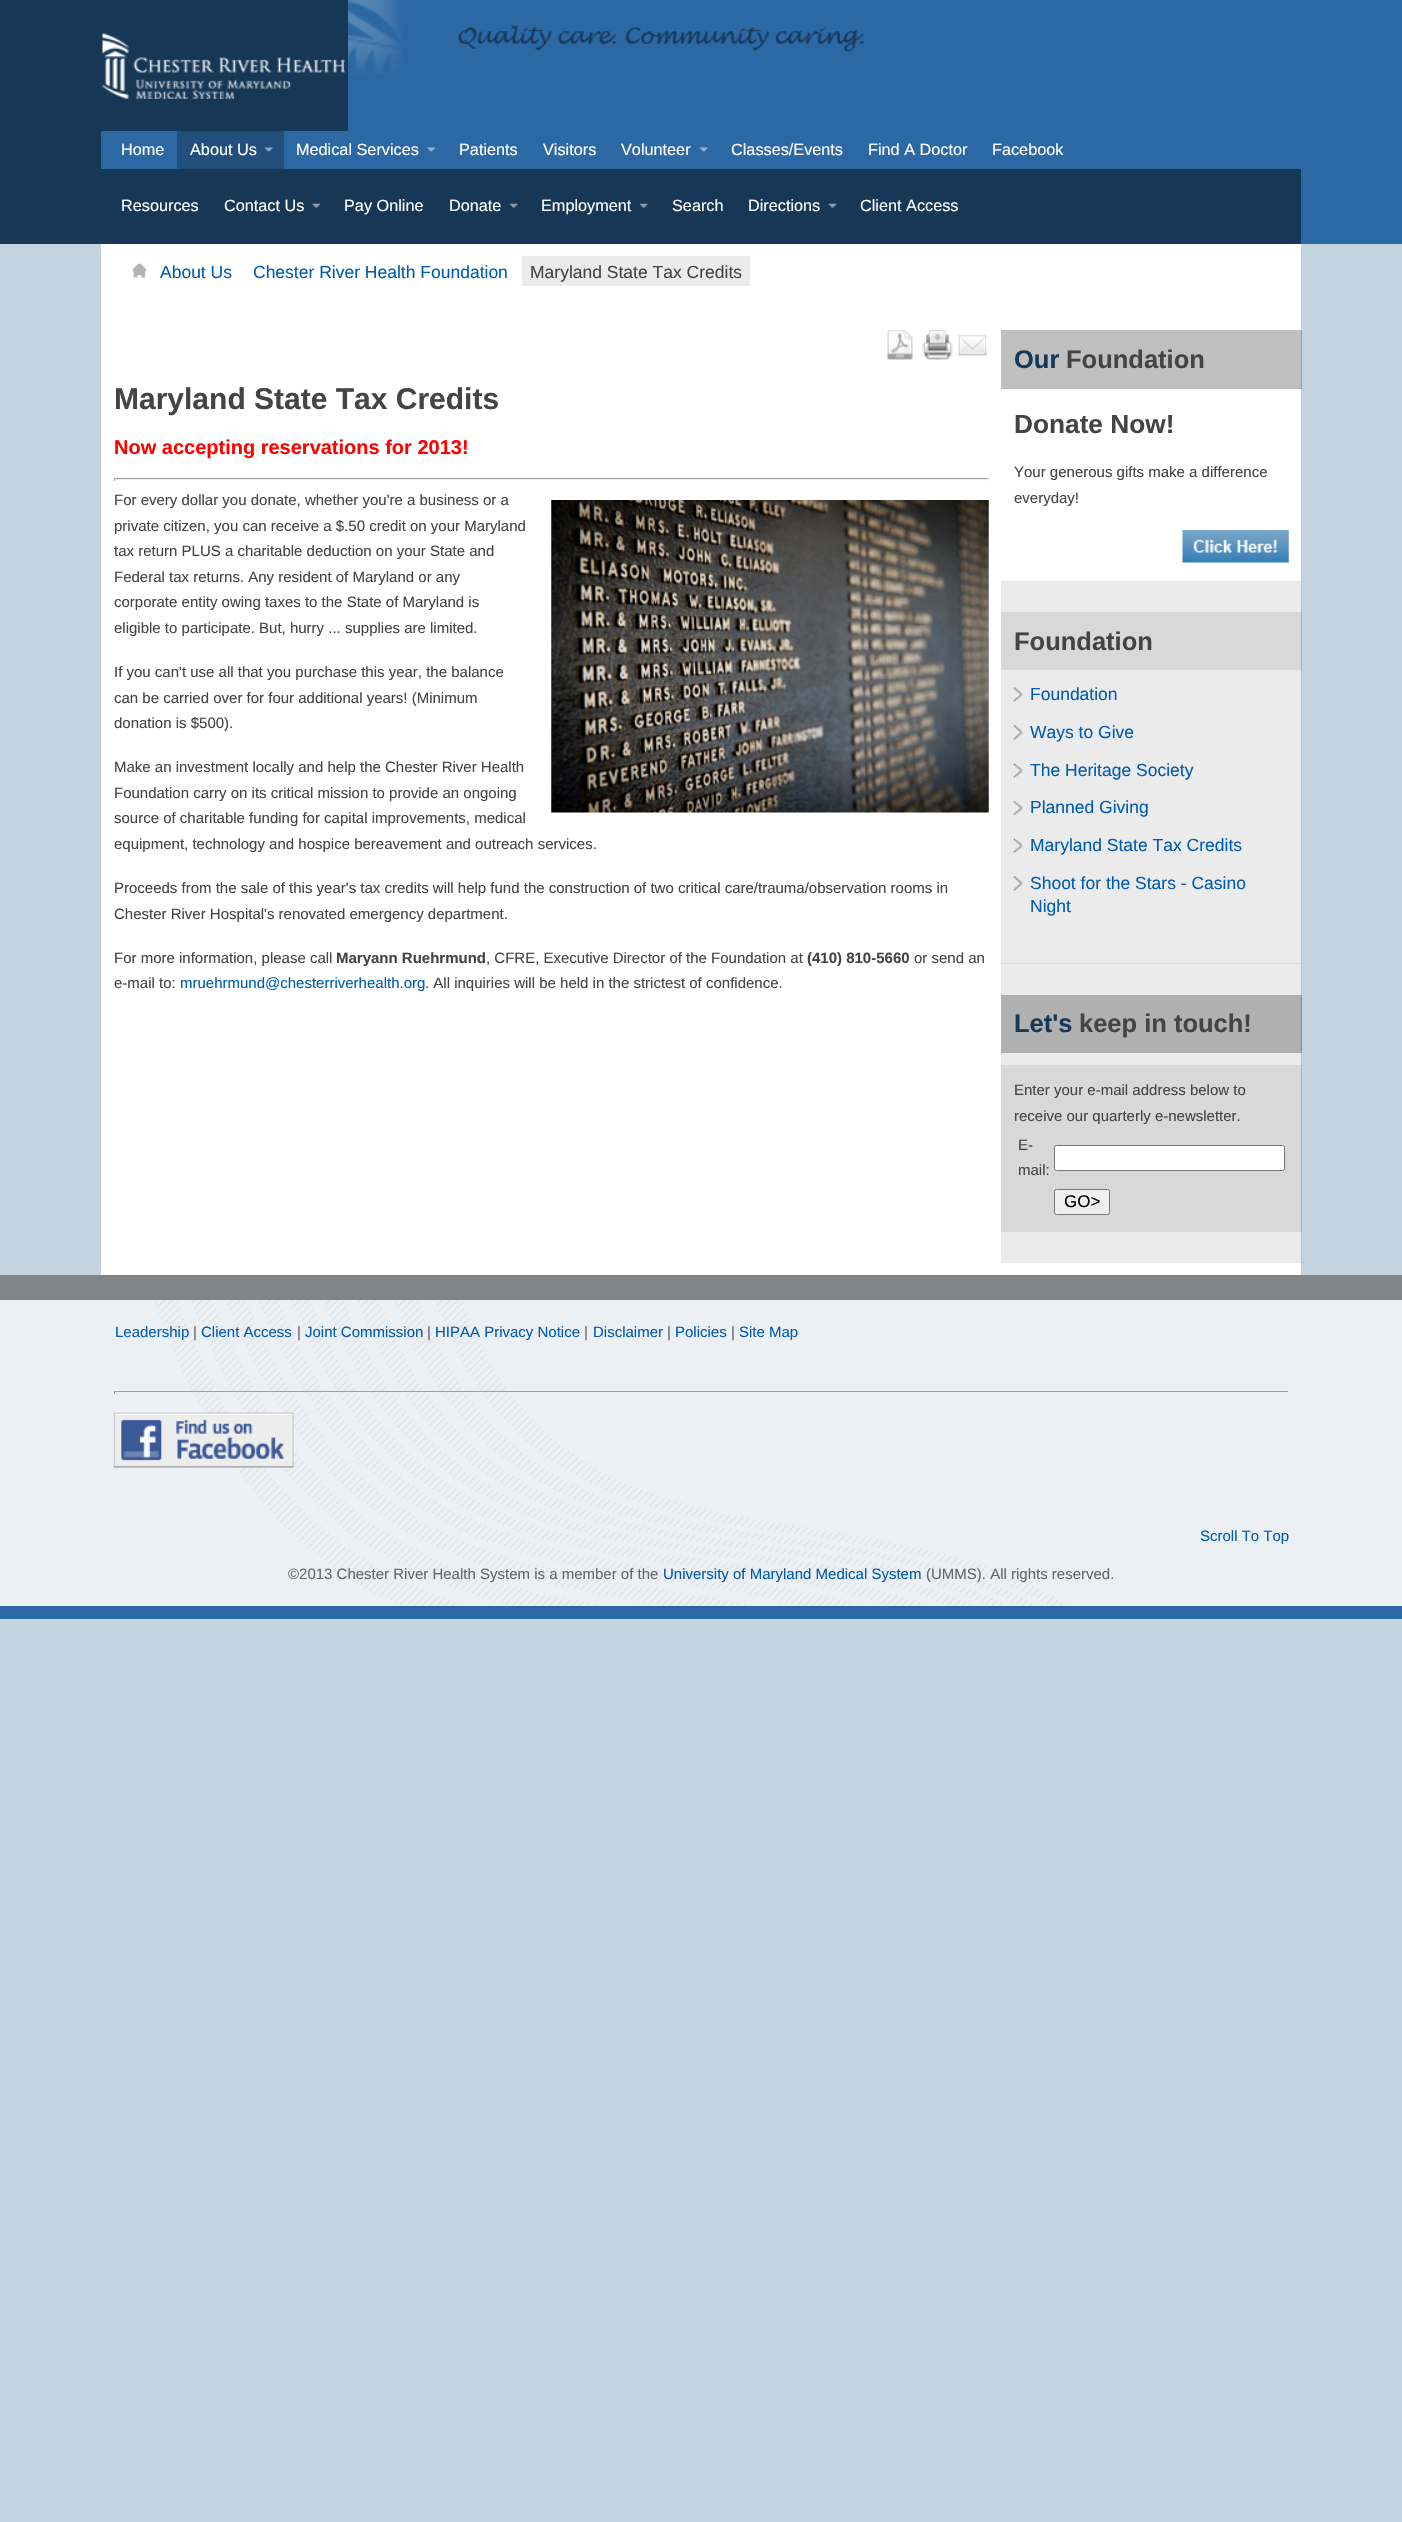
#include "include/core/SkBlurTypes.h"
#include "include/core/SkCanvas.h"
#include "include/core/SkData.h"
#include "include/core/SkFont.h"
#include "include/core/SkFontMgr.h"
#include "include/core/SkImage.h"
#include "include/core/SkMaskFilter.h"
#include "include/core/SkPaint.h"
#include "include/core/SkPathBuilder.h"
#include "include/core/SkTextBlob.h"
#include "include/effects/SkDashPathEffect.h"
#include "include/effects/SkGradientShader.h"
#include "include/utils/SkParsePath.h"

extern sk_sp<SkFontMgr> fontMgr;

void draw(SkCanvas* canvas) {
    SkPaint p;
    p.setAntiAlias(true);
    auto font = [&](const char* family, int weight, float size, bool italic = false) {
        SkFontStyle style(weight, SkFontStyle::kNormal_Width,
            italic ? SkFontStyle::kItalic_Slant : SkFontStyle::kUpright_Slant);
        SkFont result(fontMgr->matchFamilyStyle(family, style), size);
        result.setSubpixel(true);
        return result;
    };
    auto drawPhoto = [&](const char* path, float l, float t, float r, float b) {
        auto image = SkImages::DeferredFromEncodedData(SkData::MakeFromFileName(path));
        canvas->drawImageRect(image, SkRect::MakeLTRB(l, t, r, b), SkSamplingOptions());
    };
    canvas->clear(0xFFC3D3E0);
    {
        const struct { float l, t, r, b; SkColor color; } items[] = {
            {1301, 330, 1302, 389, 0xFF929EA8},
            {1301, 964, 1302, 1263, 0xFFB3C2CE},
            {1301, 1065, 1302, 1232, 0xFFA5B2BE},
            {1301, 995, 1302, 1053, 0xFF86929B},
            {1301, 581, 1302, 963, 0xFFB3C2CE},
            {1301, 612, 1302, 670, 0xFFA5B2BE},
            {1301, 963, 1302, 964, 0xFFA5B2BE},
            {1301, 0, 1402, 244, 0xFF2C68A3},
            {0, 0, 101, 244, 0xFF173757},
            {101, 0, 1301, 169, 0xFF2C68A3},
            {101, 0, 348, 131, 0xFF173757},
        };
        for (auto [l, t, r, b, color] : items) {
            p.setColor(color);
            canvas->drawRect(SkRect::MakeLTRB(l, t, r, b), p);
        }
    }
    drawPhoto("media/1.png", 102, 33, 346, 99);
    drawPhoto("media/2.png", 348, 0, 864, 74);
    auto font1 = font("Liberation Sans", 400, 16.25f);
    p.setColor(0xFFFFFFFF);
    canvas->drawString("Home", 121, 155, font1, p);
    p.setColor(0xFF214E7A);
    canvas->drawRect(SkRect::MakeLTRB(177, 131, 284, 169), p);
    p.setColor(0xFFFFFFFF);
    canvas->drawString("About Us", 190, 155, font1, p);
    drawPhoto("media/3.png", 264, 147, 273, 152);
    canvas->drawString("Medical Services", 296, 155, font1, p);
    drawPhoto("media/4.png", 427, 147, 436, 152);
    {
        const struct { const char* s; float x, y; } items[] = {
            {"Patients", 459, 155},
            {"Visitors", 543, 155},
            {"Volunteer", 621, 155},
        };
        for (auto [s, x, y] : items) {
            canvas->drawString(s, x, y, font1, p);
        }
    }
    drawPhoto("media/5.png", 699, 147, 708, 152);
    {
        const struct { const char* s; float x, y; } items[] = {
            {"Classes/Events", 731, 155},
            {"Find A Doctor", 868, 155},
            {"Facebook", 992, 155},
        };
        for (auto [s, x, y] : items) {
            canvas->drawString(s, x, y, font1, p);
        }
    }
    p.setColor(0xFF173757);
    canvas->drawRect(SkRect::MakeLTRB(101, 169, 1301, 244), p);
    p.setColor(0xFFFFFFFF);
    canvas->drawString("Resources", 121, 211, font1, p);
    canvas->drawString("Contact Us", 224, 211, font1, p);
    drawPhoto("media/6.png", 312, 203, 321, 208);
    canvas->drawString("Pay Online", 344, 211, font1, p);
    canvas->drawString("Donate", 449, 211, font1, p);
    drawPhoto("media/7.png", 509, 203, 518, 208);
    canvas->drawString("Employment", 541, 211, font1, p);
    drawPhoto("media/7.png", 639, 203, 648, 208);
    canvas->drawString("Search", 672, 211, font1, p);
    canvas->drawString("Directions", 748, 211, font1, p);
    drawPhoto("media/8.png", 828, 203, 837, 208);
    canvas->drawString("Client Access", 860, 211, font1, p);
    {
        const struct { float l, t, r, b; SkColor color; } items[] = {
            {101, 244, 1301, 1275, 0xFFFFFFFF},
            {1001, 330, 1301, 389, 0xFFBFBFBF},
            {1001, 964, 1301, 1263, 0xFFEBEBEB},
            {1001, 1065, 1301, 1232, 0xFFD8D8D8},
            {1001, 995, 1301, 1053, 0xFFB0B0B0},
            {1001, 581, 1301, 963, 0xFFEBEBEB},
            {1001, 612, 1301, 670, 0xFFD8D8D8},
            {1001, 963, 1301, 964, 0xFFD8D8D8},
        };
        for (auto [l, t, r, b, color] : items) {
            p.setColor(color);
            canvas->drawRect(SkRect::MakeLTRB(l, t, r, b), p);
        }
    }
    drawPhoto("media/9.png", 132, 263, 147, 278);
    auto font2 = font("Liberation Sans", 400, 17.5f);
    p.setColor(0xFF005BB2);
    canvas->drawString("About Us", 160, 278, font2, p);
    canvas->drawString("Chester River Health Foundation", 253, 278, font2, p);
    p.setColor(0xFFEBEBEB);
    canvas->drawRect(SkRect::MakeLTRB(522, 256, 750, 286), p);
    p.setColor(0xFF444444);
    canvas->drawString("Maryland State Tax Credits", 530, 278, font2, p);
    drawPhoto("media/10.png", 887, 330, 913, 360);
    drawPhoto("media/11.png", 922, 330, 953, 360);
    drawPhoto("media/12.png", 958, 335, 988, 357);
    auto font3 = font("Liberation Sans", 700, 30);
    canvas->drawString("Maryland State Tax Credits", 114, 409, font3, p);
    auto font4 = font("Liberation Sans", 700, 20);
    p.setColor(0xFFFF0000);
    canvas->drawString("Now accepting reservations for 2013!", 114, 454, font4, p);
    {
        const struct { float l, t, r, b; SkColor color; } items[] = {
            {114, 478, 989, 479, 0xFF9F9F9F},
            {988, 478, 989, 481, 0xFFEEEEEE},
            {114, 479, 989, 480, 0xFFEEEEEE},
            {114, 478, 115, 481, 0xFF9F9F9F},
        };
        for (auto [l, t, r, b, color] : items) {
            p.setColor(color);
            canvas->drawRect(SkRect::MakeLTRB(l, t, r, b), p);
        }
    }
    auto font5 = font("Liberation Sans", 400, 15);
    p.setColor(0xFF444444);
    canvas->drawString("For every dollar you donate, whether you're a business or a", 114, 505, font5, p);
    drawPhoto("media/13.png", 551, 500, 989, 813);
    {
        const struct { const char* s; float x, y; } items[] = {
            {"private citizen, you can receive a $.50 credit on your Maryland", 114, 531},
            {"tax return PLUS a charitable deduction on your State and", 114, 556},
            {"Federal tax returns. Any resident of Maryland or any", 114, 582},
            {"corporate entity owing taxes to the State of Maryland is", 114, 607},
            {"eligible to participate. But, hurry ... supplies are limited.", 114, 633},
            {"If you can't use all that you purchase this year, the balance", 114, 677},
            {"can be carried over for four additional years! (Minimum", 114, 703},
            {"donation is $500).", 114, 728},
            {"Make an investment locally and help the Chester River Health", 114, 772},
            {"Foundation carry on its critical mission to provide an ongoing", 114, 798},
            {"source of charitable funding for capital improvements, medical", 114, 823},
            {"equipment, technology and hospice bereavement and outreach services.", 114, 849},
            {"Proceeds from the sale of this year's tax credits will help fund the construction of two critical care/trauma/observation rooms in", 114, 893},
            {"Chester River Hospital's renovated emergency department.", 114, 919},
            {"For more information, please call", 114, 963},
        };
        for (auto [s, x, y] : items) {
            canvas->drawString(s, x, y, font5, p);
        }
    }
    auto font6 = font("Liberation Sans", 700, 15);
    canvas->drawString("Maryann Ruehrmund", 336, 963, font6, p);
    canvas->drawString(", CFRE, Executive Director of the Foundation at", 486, 963, font5, p);
    canvas->drawString("(410) 810-5660", 807, 963, font6, p);
    canvas->drawString("or send an", 914, 963, font5, p);
    canvas->drawString("e-mail to:", 114, 988, font5, p);
    p.setColor(0xFF005BB2);
    canvas->drawString("mruehrmund@chesterriverhealth.org", 180, 988, font5, p);
    p.setColor(0xFF444444);
    canvas->drawString(". All inquiries will be held in the strictest of confidence.", 425, 988, font5, p);
    auto font7 = font("Liberation Sans", 700, 25.5f);
    p.setColor(0xFF173757);
    canvas->drawString("Our", 1014, 368, font7, p);
    p.setColor(0xFF444444);
    canvas->drawString("Foundation", 1066, 368, font7, p);
    auto font8 = font("Liberation Sans", 700, 26.25f);
    canvas->drawString("Donate Now!", 1014, 433, font8, p);
    canvas->drawString("Your generous gifts make a difference", 1014, 477, font5, p);
    canvas->drawString("everyday!", 1014, 503, font5, p);
    drawPhoto("media/14.png", 1182, 530, 1289, 563);
    canvas->drawString("Foundation", 1014, 650, font7, p);
    drawPhoto("media/15.png", 1013, 687, 1023, 702);
    p.setColor(0xFF005BB2);
    canvas->drawString("Foundation", 1030, 700, font2, p);
    drawPhoto("media/16.png", 1013, 725, 1023, 740);
    canvas->drawString("Ways to Give", 1030, 738, font2, p);
    drawPhoto("media/17.png", 1013, 763, 1023, 778);
    canvas->drawString("The Heritage Society", 1030, 776, font2, p);
    drawPhoto("media/18.png", 1013, 801, 1023, 815);
    canvas->drawString("Planned Giving", 1030, 813, font2, p);
    drawPhoto("media/17.png", 1013, 838, 1023, 853);
    canvas->drawString("Maryland State Tax Credits", 1030, 851, font2, p);
    drawPhoto("media/19.png", 1013, 876, 1023, 891);
    canvas->drawString("Shoot for the Stars - Casino", 1030, 889, font2, p);
    canvas->drawString("Night", 1030, 912, font2, p);
    p.setColor(0xFF173757);
    canvas->drawString("Let's", 1014, 1032, font7, p);
    p.setColor(0xFF444444);
    canvas->drawString("keep in touch!", 1079, 1032, font7, p);
    {
        const struct { const char* s; float x, y; } items[] = {
            {"Enter your e-mail address below to", 1014, 1095},
            {"receive our quarterly e-newsletter.", 1014, 1121},
            {"E-", 1018, 1150},
            {"mail:", 1018, 1175},
        };
        for (auto [s, x, y] : items) {
            canvas->drawString(s, x, y, font5, p);
        }
    }
    p.setColor(0xFFFFFFFF);
    canvas->drawRoundRect(SkRect::MakeLTRB(1054.5f, 1145.5f, 1284.5f, 1170.5f), 2, 2, p);
    p.setStyle(SkPaint::kStroke_Style);
    p.setStrokeWidth(1);
    p.setColor(0xFF767676);
    canvas->drawRoundRect(SkRect::MakeLTRB(1054.5f, 1145.5f, 1284.5f, 1170.5f), 2, 2, p);
    p.setStyle(SkPaint::kFill_Style);
    p.setColor(0xFFEFEFEF);
    canvas->drawRoundRect(SkRect::MakeLTRB(1054.5f, 1189.5f, 1109.5f, 1214.5f), 2, 2, p);
    p.setStyle(SkPaint::kStroke_Style);
    p.setColor(0xFF767676);
    canvas->drawRoundRect(SkRect::MakeLTRB(1054.5f, 1189.5f, 1109.5f, 1214.5f), 2, 2, p);
    auto font9 = font("Liberation Sans", 400, 17);
    p.setStyle(SkPaint::kFill_Style);
    p.setColor(0xFF000000);
    canvas->drawString("GO>", 1064, 1207, font9, p);
    p.setColor(0xFFECF0F5);
    canvas->drawRect(SkRect::MakeLTRB(0, 1300, 1402, 1606), p);
    p.setColor(0xFF828487);
    canvas->drawRect(SkRect::MakeLTRB(0, 1275, 1402, 1300), p);
    drawPhoto("media/20.png", 155, 1300, 1068, 1606);
    p.setColor(0xFF005BB2);
    canvas->drawString("Leadership", 115, 1337, font5, p);
    p.setColor(0xFF666666);
    canvas->drawString("|", 193, 1337, font5, p);
    p.setColor(0xFF005BB2);
    canvas->drawString("Client Access", 201, 1337, font5, p);
    p.setColor(0xFF666666);
    canvas->drawString("|", 297, 1337, font5, p);
    p.setColor(0xFF005BB2);
    canvas->drawString("Joint Commission", 305, 1337, font5, p);
    p.setColor(0xFF666666);
    canvas->drawString("|", 427, 1337, font5, p);
    p.setColor(0xFF005BB2);
    canvas->drawString("HIPAA Privacy Notice", 435, 1337, font5, p);
    p.setColor(0xFF666666);
    canvas->drawString("|", 584, 1337, font5, p);
    p.setColor(0xFF005BB2);
    canvas->drawString("Disclaimer", 593, 1337, font5, p);
    p.setColor(0xFF666666);
    canvas->drawString("|", 667, 1337, font5, p);
    p.setColor(0xFF005BB2);
    canvas->drawString("Policies", 675, 1337, font5, p);
    p.setColor(0xFF666666);
    canvas->drawString("|", 731, 1337, font5, p);
    p.setColor(0xFF005BB2);
    canvas->drawString("Site Map", 739, 1337, font5, p);
    {
        const struct { float l, t, r, b; SkColor color; } items[] = {
            {114, 1391, 1289, 1392, 0xFF9F9F9F},
            {1288, 1391, 1289, 1394, 0xFFEEEEEE},
            {114, 1393, 1289, 1394, 0xFFEEEEEE},
            {114, 1391, 115, 1394, 0xFF9F9F9F},
        };
        for (auto [l, t, r, b, color] : items) {
            p.setColor(color);
            canvas->drawRect(SkRect::MakeLTRB(l, t, r, b), p);
        }
    }
    drawPhoto("media/21.png", 113, 1412, 294, 1468);
    p.setColor(0xFF005BB2);
    canvas->drawString("Scroll To Top", 1200, 1541, font5, p);
    p.setColor(0xFF666666);
    canvas->drawString("©2013 Chester River Health System is a member of the", 288, 1579, font5, p);
    p.setColor(0xFF005BB2);
    canvas->drawString("University of Maryland Medical System", 663, 1579, font5, p);
    p.setColor(0xFF666666);
    canvas->drawString("(UMMS). All rights reserved.", 926, 1579, font5, p);
    p.setColor(0xFF2C68A3);
    canvas->drawRect(SkRect::MakeLTRB(0, 1606, 1402, 1619), p);
}
